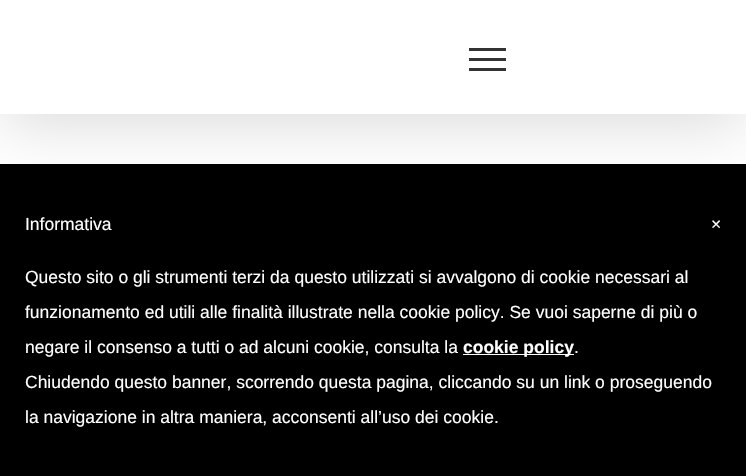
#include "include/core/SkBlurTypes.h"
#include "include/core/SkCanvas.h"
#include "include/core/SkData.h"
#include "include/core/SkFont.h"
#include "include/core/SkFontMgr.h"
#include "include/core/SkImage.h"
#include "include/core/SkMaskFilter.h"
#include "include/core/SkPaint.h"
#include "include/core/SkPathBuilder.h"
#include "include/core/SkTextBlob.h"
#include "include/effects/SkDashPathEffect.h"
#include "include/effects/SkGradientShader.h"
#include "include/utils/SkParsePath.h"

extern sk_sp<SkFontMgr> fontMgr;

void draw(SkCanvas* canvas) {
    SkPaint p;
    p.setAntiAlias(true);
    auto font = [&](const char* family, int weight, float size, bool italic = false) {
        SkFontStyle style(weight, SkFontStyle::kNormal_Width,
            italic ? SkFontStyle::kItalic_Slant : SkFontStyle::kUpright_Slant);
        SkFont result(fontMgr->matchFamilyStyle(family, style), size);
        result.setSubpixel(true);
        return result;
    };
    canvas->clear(0xFFFFFFFF);
    p.setColor(0x24000000);
    p.setMaskFilter(SkMaskFilter::MakeBlur(kNormal_SkBlurStyle, 31));
    canvas->drawRect(SkRect::MakeLTRB(3, 15, 744, 124), p);
    p.setMaskFilter(nullptr);
    {
        const struct { float l, t, r, b; SkColor color; } items[] = {
            {0, 0, 746, 114, 0xFFFFFFFF},
            {469, 48, 506, 51, 0xFF333333},
            {469, 58, 506, 61, 0xFF333333},
            {469, 68, 506, 71, 0xFF333333},
            {0, 164, 746, 476, 0xFF000000},
        };
        for (auto [l, t, r, b, color] : items) {
            p.setColor(color);
            canvas->drawRect(SkRect::MakeLTRB(l, t, r, b), p);
        }
    }
    auto font1 = font("Liberation Sans", 400, 17.5f);
    p.setColor(0xFFFFFFFF);
    {
        const struct { const char* s; float x, y; } items[] = {
            {"Informativa", 25, 230},
            {"Questo sito o gli strumenti terzi da questo utilizzati si avvalgono di cookie necessari al", 25, 283},
            {"funzionamento ed utili alle finalità illustrate nella cookie policy. Se vuoi saperne di più o", 25, 318},
            {"negare il consenso a tutti o ad alcuni cookie, consulta la", 25, 353},
        };
        for (auto [s, x, y] : items) {
            canvas->drawString(s, x, y, font1, p);
        }
    }
    canvas->drawRect(SkRect::MakeLTRB(463, 354, 574, 355), p);
    auto font2 = font("Liberation Sans", 700, 17.5f);
    canvas->drawString("cookie policy", 463, 353, font2, p);
    {
        const struct { const char* s; float x, y; } items[] = {
            {".", 574, 353},
            {"Chiudendo questo banner, scorrendo questa pagina, cliccando su un link o proseguendo", 25, 388},
            {"la navigazione in altra maniera, acconsenti all’uso dei cookie.", 25, 423},
            {"×", 711, 230},
        };
        for (auto [s, x, y] : items) {
            canvas->drawString(s, x, y, font1, p);
        }
    }
}
